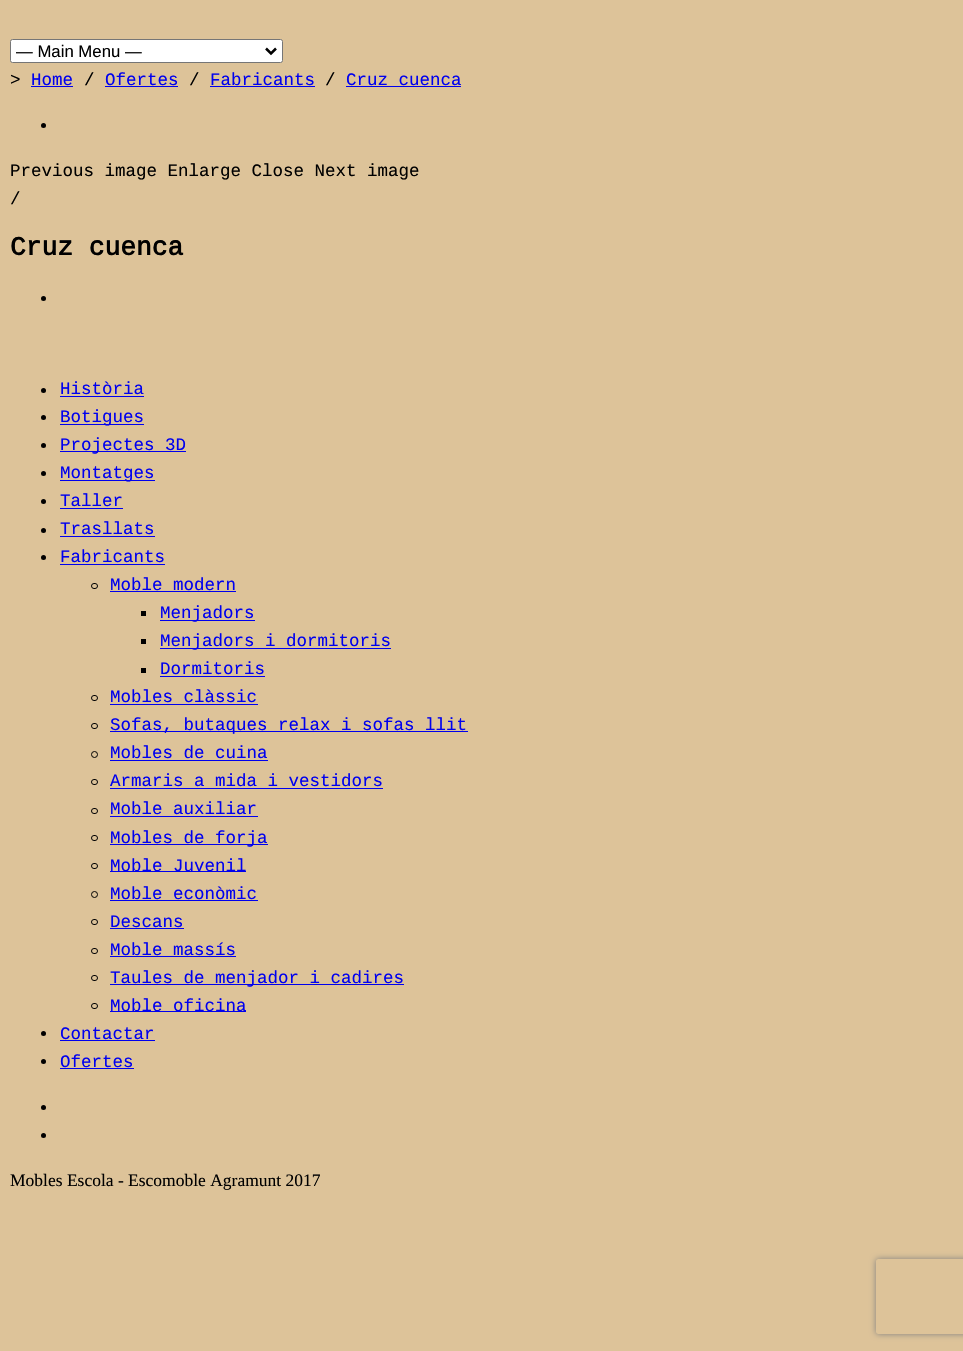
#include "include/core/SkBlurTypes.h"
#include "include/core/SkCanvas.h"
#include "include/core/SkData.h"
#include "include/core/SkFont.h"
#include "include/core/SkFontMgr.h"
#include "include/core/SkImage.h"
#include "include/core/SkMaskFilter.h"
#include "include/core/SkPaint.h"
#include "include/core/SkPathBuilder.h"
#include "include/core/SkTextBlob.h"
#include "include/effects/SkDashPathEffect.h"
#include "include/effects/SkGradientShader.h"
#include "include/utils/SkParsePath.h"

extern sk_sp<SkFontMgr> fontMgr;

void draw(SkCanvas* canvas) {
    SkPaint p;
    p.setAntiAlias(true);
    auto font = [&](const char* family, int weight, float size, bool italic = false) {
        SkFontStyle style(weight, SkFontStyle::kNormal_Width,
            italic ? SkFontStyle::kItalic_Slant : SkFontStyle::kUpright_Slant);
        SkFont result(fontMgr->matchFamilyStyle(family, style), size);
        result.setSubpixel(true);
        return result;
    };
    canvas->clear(0xFFDDC399);
    p.setColor(0xFFFFFFFF);
    canvas->drawRoundRect(SkRect::MakeLTRB(10.5f, 39.5f, 282.5f, 62.5f), 2, 2, p);
    p.setStyle(SkPaint::kStroke_Style);
    p.setStrokeWidth(1);
    p.setColor(0xFF767676);
    canvas->drawRoundRect(SkRect::MakeLTRB(10.5f, 39.5f, 282.5f, 62.5f), 2, 2, p);
    p.setStrokeWidth(2.5f);
    p.setColor(0xFF000000);
    canvas->drawPath(SkPathBuilder().moveTo(266, 48.5f).lineTo(271, 53.5f).lineTo(276, 48.5f).detach(), p);
    auto font1 = font("Liberation Sans", 400, 16.75f);
    p.setStyle(SkPaint::kFill_Style);
    canvas->drawString("— Main Menu —", 16, 57, font1, p);
    auto font2 = font("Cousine", 400, 17.5f);
    canvas->drawString(">", 10, 85, font2, p);
    p.setColor(0xFF0000EE);
    canvas->drawString("Home", 31, 85, font2, p);
    canvas->drawRect(SkRect::MakeLTRB(31, 86, 73, 87), p);
    p.setColor(0xFF000000);
    canvas->drawString("/", 84, 85, font2, p);
    p.setColor(0xFF0000EE);
    canvas->drawString("Ofertes", 105, 85, font2, p);
    canvas->drawRect(SkRect::MakeLTRB(105, 86, 178, 87), p);
    p.setColor(0xFF000000);
    canvas->drawString("/", 189, 85, font2, p);
    p.setColor(0xFF0000EE);
    canvas->drawString("Fabricants", 210, 85, font2, p);
    canvas->drawRect(SkRect::MakeLTRB(210, 86, 315, 87), p);
    p.setColor(0xFF000000);
    canvas->drawString("/", 325, 85, font2, p);
    p.setColor(0xFF0000EE);
    canvas->drawString("Cruz cuenca", 346, 85, font2, p);
    canvas->drawRect(SkRect::MakeLTRB(346, 86, 461, 87), p);
    p.setColor(0xFF000000);
    canvas->drawCircle(43.5f, 125.5f, 2.5f, p);
    canvas->drawString("Previous image Enlarge Close Next image", 10, 176, font2, p);
    canvas->drawString("/", 10, 204, font2, p);
    auto font3 = font("Cousine", 700, 26.25f);
    canvas->drawString("Cruz cuenca", 10, 255, font3, p);
    canvas->drawCircle(43.5f, 298.5f, 2.5f, p);
    canvas->drawCircle(43.5f, 390.5f, 2.5f, p);
    p.setColor(0xFF0000EE);
    canvas->drawString("Història", 60, 394, font2, p);
    canvas->drawRect(SkRect::MakeLTRB(60, 396, 144, 397), p);
    p.setColor(0xFF000000);
    canvas->drawCircle(43.5f, 417.5f, 2.5f, p);
    p.setColor(0xFF0000EE);
    canvas->drawRect(SkRect::MakeLTRB(60, 424, 144, 425), p);
    canvas->drawString("Botigues", 60, 422, font2, p);
    p.setColor(0xFF000000);
    canvas->drawCircle(43.5f, 445.5f, 2.5f, p);
    p.setColor(0xFF0000EE);
    canvas->drawRect(SkRect::MakeLTRB(60, 451, 186, 452), p);
    canvas->drawString("Projectes 3D", 60, 450, font2, p);
    p.setColor(0xFF000000);
    canvas->drawCircle(43.5f, 473.5f, 2.5f, p);
    p.setColor(0xFF0000EE);
    canvas->drawRect(SkRect::MakeLTRB(60, 480, 155, 481), p);
    canvas->drawString("Montatges", 60, 478, font2, p);
    p.setColor(0xFF000000);
    canvas->drawCircle(43.5f, 501.5f, 2.5f, p);
    p.setColor(0xFF0000EE);
    canvas->drawString("Taller", 60, 506, font2, p);
    canvas->drawRect(SkRect::MakeLTRB(60, 508, 123, 509), p);
    p.setColor(0xFF000000);
    canvas->drawCircle(43.5f, 530.5f, 2.5f, p);
    p.setColor(0xFF0000EE);
    canvas->drawString("Trasllats", 60, 534, font2, p);
    canvas->drawRect(SkRect::MakeLTRB(60, 536, 155, 537), p);
    p.setColor(0xFF000000);
    canvas->drawCircle(43.5f, 557.5f, 2.5f, p);
    p.setColor(0xFF0000EE);
    canvas->drawString("Fabricants", 60, 562, font2, p);
    canvas->drawRect(SkRect::MakeLTRB(60, 564, 165, 565), p);
    p.setStyle(SkPaint::kStroke_Style);
    p.setStrokeWidth(1);
    p.setColor(0xFF000000);
    canvas->drawRoundRect(SkRect::MakeLTRB(91.5f, 583.5f, 97.5f, 588.5f), 2.5f, 2.5f, p);
    p.setStyle(SkPaint::kFill_Style);
    p.setColor(0xFF0000EE);
    canvas->drawString("Moble modern", 110, 590, font2, p);
    {
        const struct { float l, t, r, b; SkColor color; } items[] = {
            {110, 591, 236, 592, 0xFF0000EE},
            {141, 611, 146, 616, 0xFF000000},
            {160, 620, 255, 621, 0xFF0000EE},
        };
        for (auto [l, t, r, b, color] : items) {
            p.setColor(color);
            canvas->drawRect(SkRect::MakeLTRB(l, t, r, b), p);
        }
    }
    canvas->drawString("Menjadors", 160, 618, font2, p);
    p.setColor(0xFF000000);
    canvas->drawRect(SkRect::MakeLTRB(141, 639, 146, 644), p);
    p.setColor(0xFF0000EE);
    canvas->drawRect(SkRect::MakeLTRB(160, 648, 391, 649), p);
    canvas->drawString("Menjadors i dormitoris", 160, 646, font2, p);
    p.setColor(0xFF000000);
    canvas->drawRect(SkRect::MakeLTRB(141, 668, 146, 673), p);
    p.setColor(0xFF0000EE);
    canvas->drawString("Dormitoris", 160, 674, font2, p);
    canvas->drawRect(SkRect::MakeLTRB(160, 676, 265, 677), p);
    p.setStyle(SkPaint::kStroke_Style);
    p.setColor(0xFF000000);
    canvas->drawRoundRect(SkRect::MakeLTRB(91.5f, 695.5f, 97.5f, 700.5f), 2.5f, 2.5f, p);
    p.setStyle(SkPaint::kFill_Style);
    p.setColor(0xFF0000EE);
    canvas->drawString("Mobles clàssic", 110, 702, font2, p);
    canvas->drawRect(SkRect::MakeLTRB(110, 704, 258, 705), p);
    p.setStyle(SkPaint::kStroke_Style);
    p.setColor(0xFF000000);
    canvas->drawRoundRect(SkRect::MakeLTRB(91.5f, 723.5f, 97.5f, 728.5f), 2.5f, 2.5f, p);
    p.setStyle(SkPaint::kFill_Style);
    p.setColor(0xFF0000EE);
    canvas->drawRect(SkRect::MakeLTRB(110, 731, 468, 732), p);
    canvas->drawString("Sofas, butaques relax i sofas llit", 110, 730, font2, p);
    p.setStyle(SkPaint::kStroke_Style);
    p.setColor(0xFF000000);
    canvas->drawCircle(94.5f, 754.5f, 3, p);
    p.setStyle(SkPaint::kFill_Style);
    p.setColor(0xFF0000EE);
    canvas->drawString("Mobles de cuina", 110, 758, font2, p);
    canvas->drawRect(SkRect::MakeLTRB(110, 760, 268, 761), p);
    p.setStyle(SkPaint::kStroke_Style);
    p.setColor(0xFF000000);
    canvas->drawRoundRect(SkRect::MakeLTRB(91.5f, 779.5f, 97.5f, 784.5f), 2.5f, 2.5f, p);
    p.setStyle(SkPaint::kFill_Style);
    p.setColor(0xFF0000EE);
    canvas->drawString("Armaris a mida i vestidors", 110, 786, font2, p);
    canvas->drawRect(SkRect::MakeLTRB(110, 788, 383, 789), p);
    p.setStyle(SkPaint::kStroke_Style);
    p.setColor(0xFF000000);
    canvas->drawRoundRect(SkRect::MakeLTRB(91.5f, 808.5f, 97.5f, 813.5f), 2.5f, 2.5f, p);
    p.setStyle(SkPaint::kFill_Style);
    p.setColor(0xFF0000EE);
    canvas->drawString("Moble auxiliar", 110, 814, font2, p);
    canvas->drawRect(SkRect::MakeLTRB(110, 816, 258, 817), p);
    p.setStyle(SkPaint::kStroke_Style);
    p.setColor(0xFF000000);
    canvas->drawRoundRect(SkRect::MakeLTRB(91.5f, 835.5f, 97.5f, 840.5f), 2.5f, 2.5f, p);
    p.setStyle(SkPaint::kFill_Style);
    p.setColor(0xFF0000EE);
    canvas->drawRect(SkRect::MakeLTRB(110, 844, 268, 845), p);
    canvas->drawString("Mobles de forja", 110, 843, font2, p);
    p.setStyle(SkPaint::kStroke_Style);
    p.setColor(0xFF000000);
    canvas->drawRoundRect(SkRect::MakeLTRB(91.5f, 863.5f, 97.5f, 868.5f), 2.5f, 2.5f, p);
    p.setStyle(SkPaint::kFill_Style);
    p.setColor(0xFF0000EE);
    canvas->drawRect(SkRect::MakeLTRB(110, 871, 246, 872), p);
    canvas->drawString("Moble Juvenil", 110, 871, font2, p);
    p.setStyle(SkPaint::kStroke_Style);
    p.setColor(0xFF000000);
    canvas->drawCircle(94.5f, 894.5f, 3, p);
    p.setStyle(SkPaint::kFill_Style);
    p.setColor(0xFF0000EE);
    canvas->drawString("Moble econòmic", 110, 899, font2, p);
    canvas->drawRect(SkRect::MakeLTRB(110, 900, 258, 901), p);
    p.setStyle(SkPaint::kStroke_Style);
    p.setColor(0xFF000000);
    canvas->drawRoundRect(SkRect::MakeLTRB(91.5f, 919.5f, 97.5f, 924.5f), 2.5f, 2.5f, p);
    p.setStyle(SkPaint::kFill_Style);
    p.setColor(0xFF0000EE);
    canvas->drawString("Descans", 110, 927, font2, p);
    canvas->drawRect(SkRect::MakeLTRB(110, 928, 184, 929), p);
    p.setStyle(SkPaint::kStroke_Style);
    p.setColor(0xFF000000);
    canvas->drawRoundRect(SkRect::MakeLTRB(91.5f, 948.5f, 97.5f, 953.5f), 2.5f, 2.5f, p);
    p.setStyle(SkPaint::kFill_Style);
    p.setColor(0xFF0000EE);
    canvas->drawString("Moble massís", 110, 955, font2, p);
    canvas->drawRect(SkRect::MakeLTRB(110, 956, 236, 957), p);
    p.setStyle(SkPaint::kStroke_Style);
    p.setColor(0xFF000000);
    canvas->drawRoundRect(SkRect::MakeLTRB(91.5f, 975.5f, 97.5f, 980.5f), 2.5f, 2.5f, p);
    p.setStyle(SkPaint::kFill_Style);
    p.setColor(0xFF0000EE);
    canvas->drawRect(SkRect::MakeLTRB(110, 984, 404, 985), p);
    canvas->drawString("Taules de menjador i cadires", 110, 983, font2, p);
    p.setStyle(SkPaint::kStroke_Style);
    p.setColor(0xFF000000);
    canvas->drawRoundRect(SkRect::MakeLTRB(91.5f, 1003.5f, 97.5f, 1008.5f), 2.5f, 2.5f, p);
    p.setStyle(SkPaint::kFill_Style);
    p.setColor(0xFF0000EE);
    canvas->drawRect(SkRect::MakeLTRB(110, 1011, 246, 1012), p);
    canvas->drawString("Moble oficina", 110, 1011, font2, p);
    p.setColor(0xFF000000);
    canvas->drawCircle(43.5f, 1033.5f, 2.5f, p);
    p.setColor(0xFF0000EE);
    canvas->drawString("Contactar", 60, 1039, font2, p);
    canvas->drawRect(SkRect::MakeLTRB(60, 1040, 155, 1041), p);
    p.setColor(0xFF000000);
    canvas->drawCircle(43.5f, 1061.5f, 2.5f, p);
    p.setColor(0xFF0000EE);
    canvas->drawString("Ofertes", 60, 1067, font2, p);
    canvas->drawRect(SkRect::MakeLTRB(60, 1068, 134, 1069), p);
    p.setColor(0xFF000000);
    canvas->drawCircle(43.5f, 1107.5f, 2.5f, p);
    canvas->drawCircle(43.5f, 1135.5f, 2.5f, p);
    auto font4 = font("Liberation Serif", 400, 17.5f);
    canvas->drawString("Mobles Escola - Escomoble Agramunt 2017", 10, 1186, font4, p);
    canvas->save();
    canvas->clipPath(SkPathBuilder(SkPathFillType::kEvenOdd).moveTo(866, 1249).lineTo(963, 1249).lineTo(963, 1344).lineTo(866, 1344).close().moveTo(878.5f, 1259).lineTo(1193.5f, 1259).cubicTo(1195, 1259, 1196, 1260, 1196, 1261.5f).lineTo(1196, 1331.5f).cubicTo(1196, 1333, 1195, 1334, 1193.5f, 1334).lineTo(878.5f, 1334).cubicTo(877, 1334, 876, 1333, 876, 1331.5f).lineTo(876, 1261.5f).cubicTo(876, 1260, 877, 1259, 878.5f, 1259).close().detach(), true);
    p.setColor(0xFF808080);
    p.setMaskFilter(SkMaskFilter::MakeBlur(kNormal_SkBlurStyle, 3));
    canvas->drawRoundRect(SkRect::MakeLTRB(876, 1259, 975, 1334), 2.5f, 2.5f, p);
    p.setMaskFilter(nullptr);
    canvas->restore();
}
